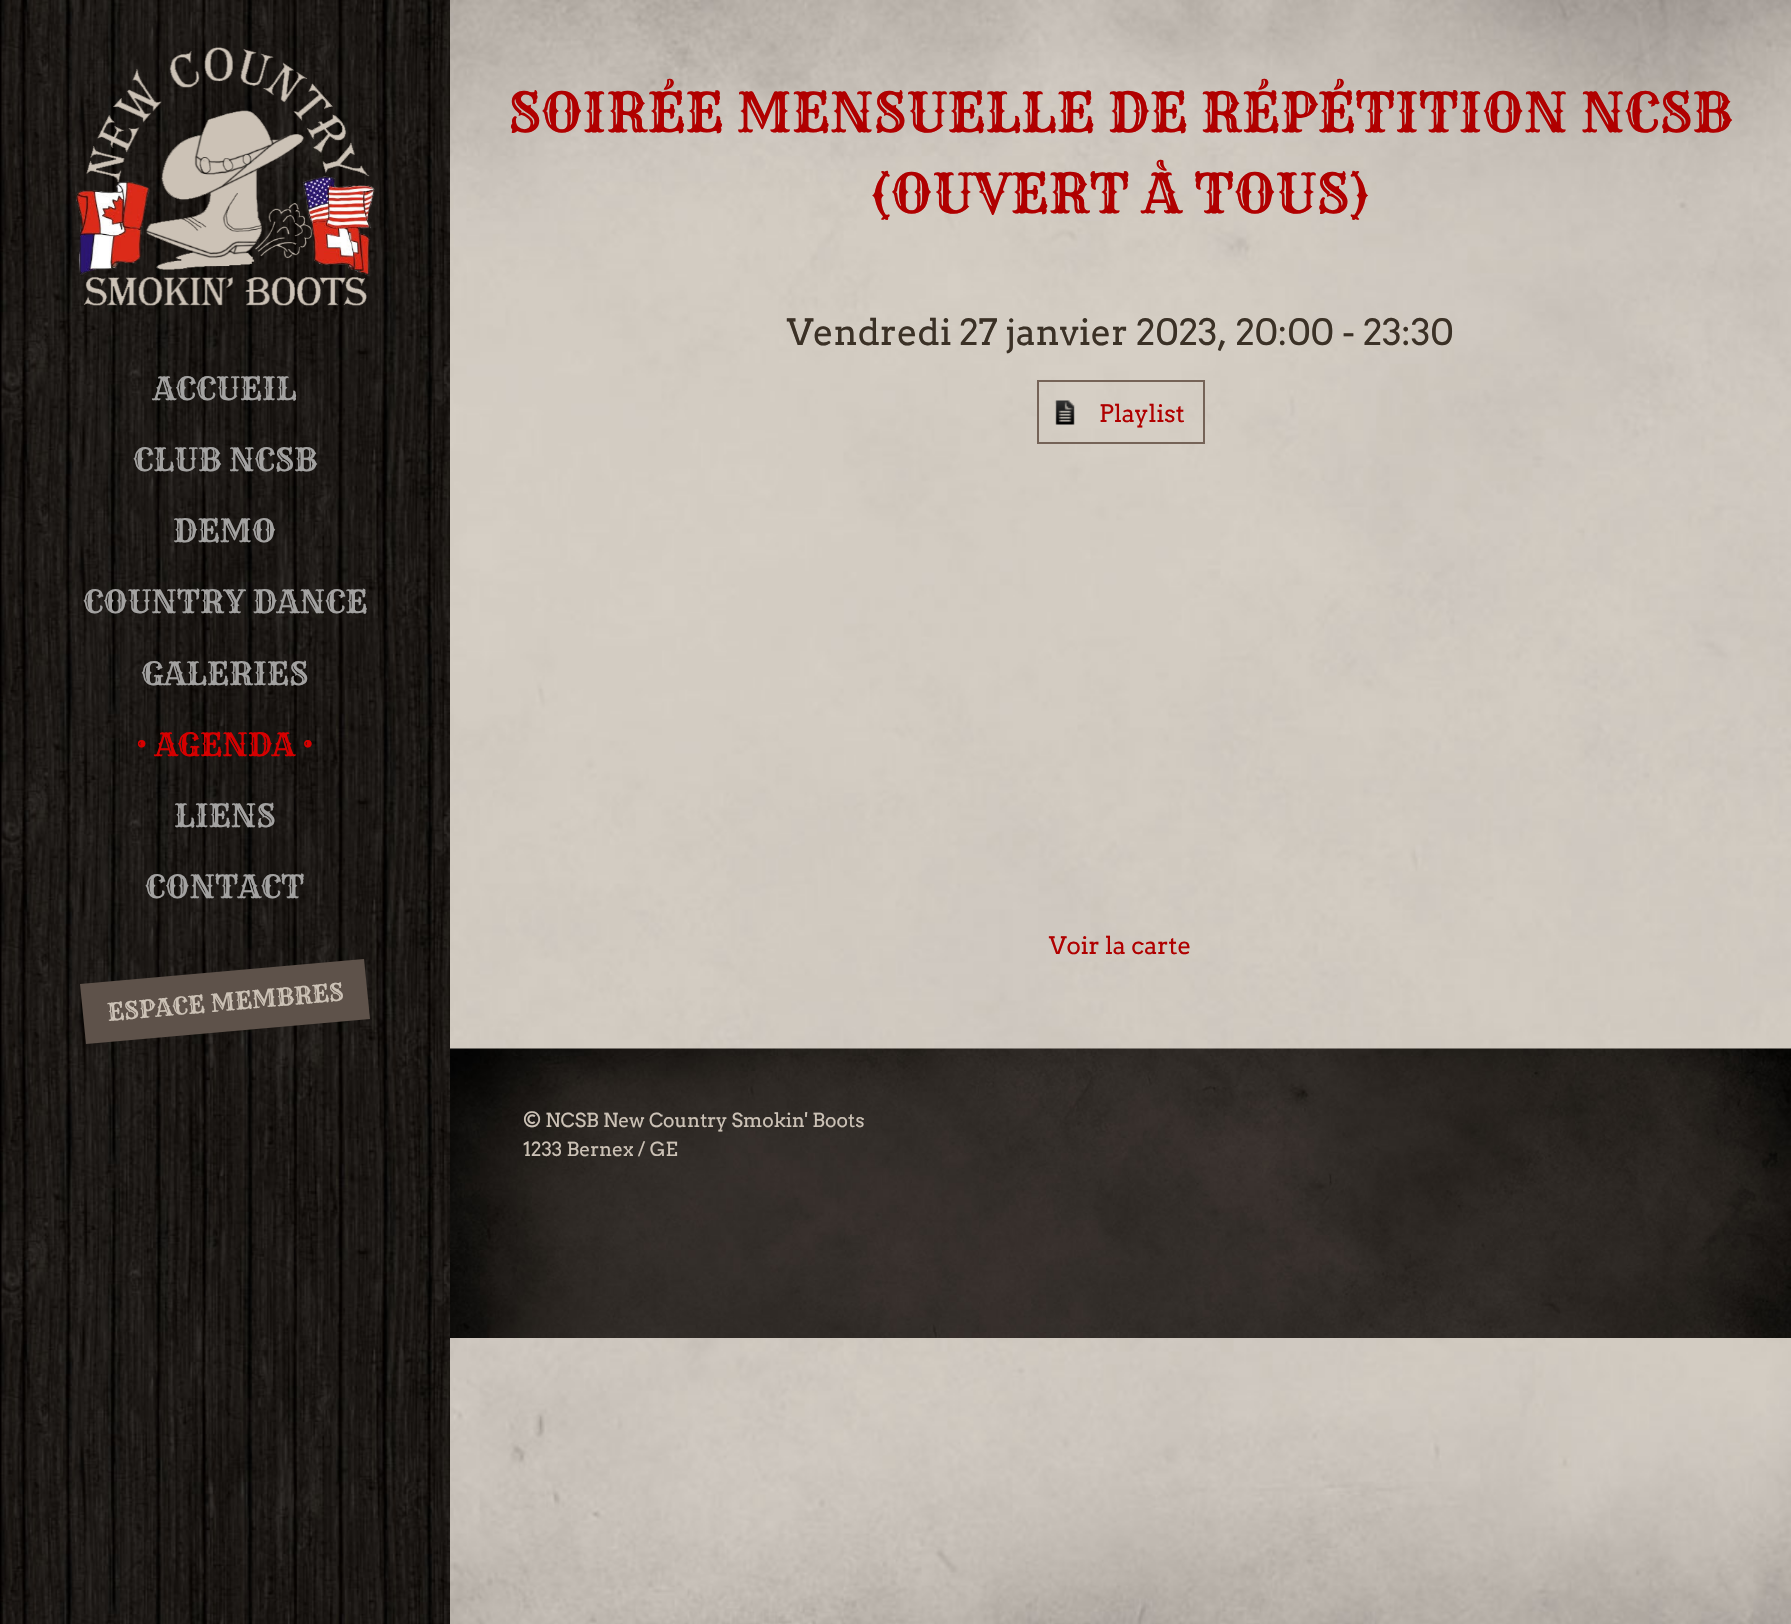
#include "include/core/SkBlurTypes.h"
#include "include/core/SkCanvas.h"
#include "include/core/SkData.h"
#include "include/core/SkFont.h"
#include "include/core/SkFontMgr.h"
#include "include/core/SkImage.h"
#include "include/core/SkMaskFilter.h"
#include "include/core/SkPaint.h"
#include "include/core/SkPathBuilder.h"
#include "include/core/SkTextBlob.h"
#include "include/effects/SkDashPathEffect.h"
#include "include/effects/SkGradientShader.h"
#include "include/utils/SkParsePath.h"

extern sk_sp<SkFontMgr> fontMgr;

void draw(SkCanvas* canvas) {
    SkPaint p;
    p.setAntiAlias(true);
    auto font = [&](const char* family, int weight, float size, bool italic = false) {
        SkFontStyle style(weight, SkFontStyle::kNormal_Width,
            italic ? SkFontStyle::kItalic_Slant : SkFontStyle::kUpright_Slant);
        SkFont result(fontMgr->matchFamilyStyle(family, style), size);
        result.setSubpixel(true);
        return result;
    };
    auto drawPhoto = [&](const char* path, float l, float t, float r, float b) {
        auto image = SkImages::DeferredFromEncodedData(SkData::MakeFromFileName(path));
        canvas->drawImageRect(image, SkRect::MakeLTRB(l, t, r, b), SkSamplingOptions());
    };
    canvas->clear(0xFFFFFFFF);
    drawPhoto("media/1.png", 450, 0, 1791, 1624);
    drawPhoto("media/2.png", 0, 0, 450, 1624);
    drawPhoto("media/3.png", 76, 47, 375, 306);
    auto font1 = font("Rye", 400, 31.5f);
    p.setColor(0xFFA3A2A1);
    {
        const struct { const char* s; float x, y; } items[] = {
            {"ACCUEIL", 153, 400},
            {"CLUB NCSB", 133, 471},
            {"DEMO", 173, 542},
            {"COUNTRY DANCE", 83, 613},
            {"GALERIES", 141, 685},
        };
        for (auto [s, x, y] : items) {
            canvas->drawString(s, x, y, font1, p);
        }
    }
    p.setColor(0xFFD60000);
    canvas->drawString("• AGENDA •", 136, 756, font1, p);
    p.setColor(0xFFA3A2A1);
    canvas->drawString("LIENS", 174, 827, font1, p);
    canvas->drawString("CONTACT", 145, 898, font1, p);
    p.setColor(0xFF5E524A);
    canvas->drawPath(SkPathBuilder().moveTo(80, 984).lineTo(364, 959).lineTo(370, 1019).lineTo(86, 1044).close().detach(), p);
    auto font2 = font("Rye", 400, 24);
    p.setColor(0xFFCCC2B6);
    canvas->save();
    canvas->rotate(-5, 108, 1021);
    canvas->drawString("ESPACE MEMBRES", 108, 1021, font2, p);
    canvas->restore();
    auto font3 = font("Rye", 400, 54);
    p.setColor(0xFFB00000);
    canvas->drawString("SOIRÉE MENSUELLE DE RÉPÉTITION NCSB", 508, 132, font3, p);
    canvas->drawString("(OUVERT À TOUS)", 870, 213, font3, p);
    auto font4 = font("Arvo", 400, 36);
    p.setColor(0xFF3B3126);
    canvas->drawString("Vendredi 27 janvier 2023, 20:00 - 23:30", 787, 345, font4, p);
    drawPhoto("media/4.png", 1054, 400, 1075, 425);
    p.setStyle(SkPaint::kStroke_Style);
    p.setStrokeWidth(2);
    p.setColor(0xFF756357);
    canvas->drawRect(SkRect::MakeLTRB(1038, 381, 1204, 443), p);
    auto font5 = font("Arvo", 400, 24);
    p.setStyle(SkPaint::kFill_Style);
    p.setColor(0xFFB00000);
    canvas->drawString("Playlist", 1099, 422, font5, p);
    canvas->drawString("Voir la carte", 1049, 954, font5, p);
    drawPhoto("media/5.png", 450, 1048, 1791, 1338);
    auto font6 = font("Arvo", 400, 19.25f);
    p.setColor(0xFFCCC2B6);
    canvas->drawString("© NCSB New Country Smokin' Boots", 523, 1127, font6, p);
    canvas->drawString("1233 Bernex / GE", 523, 1156, font6, p);
}
